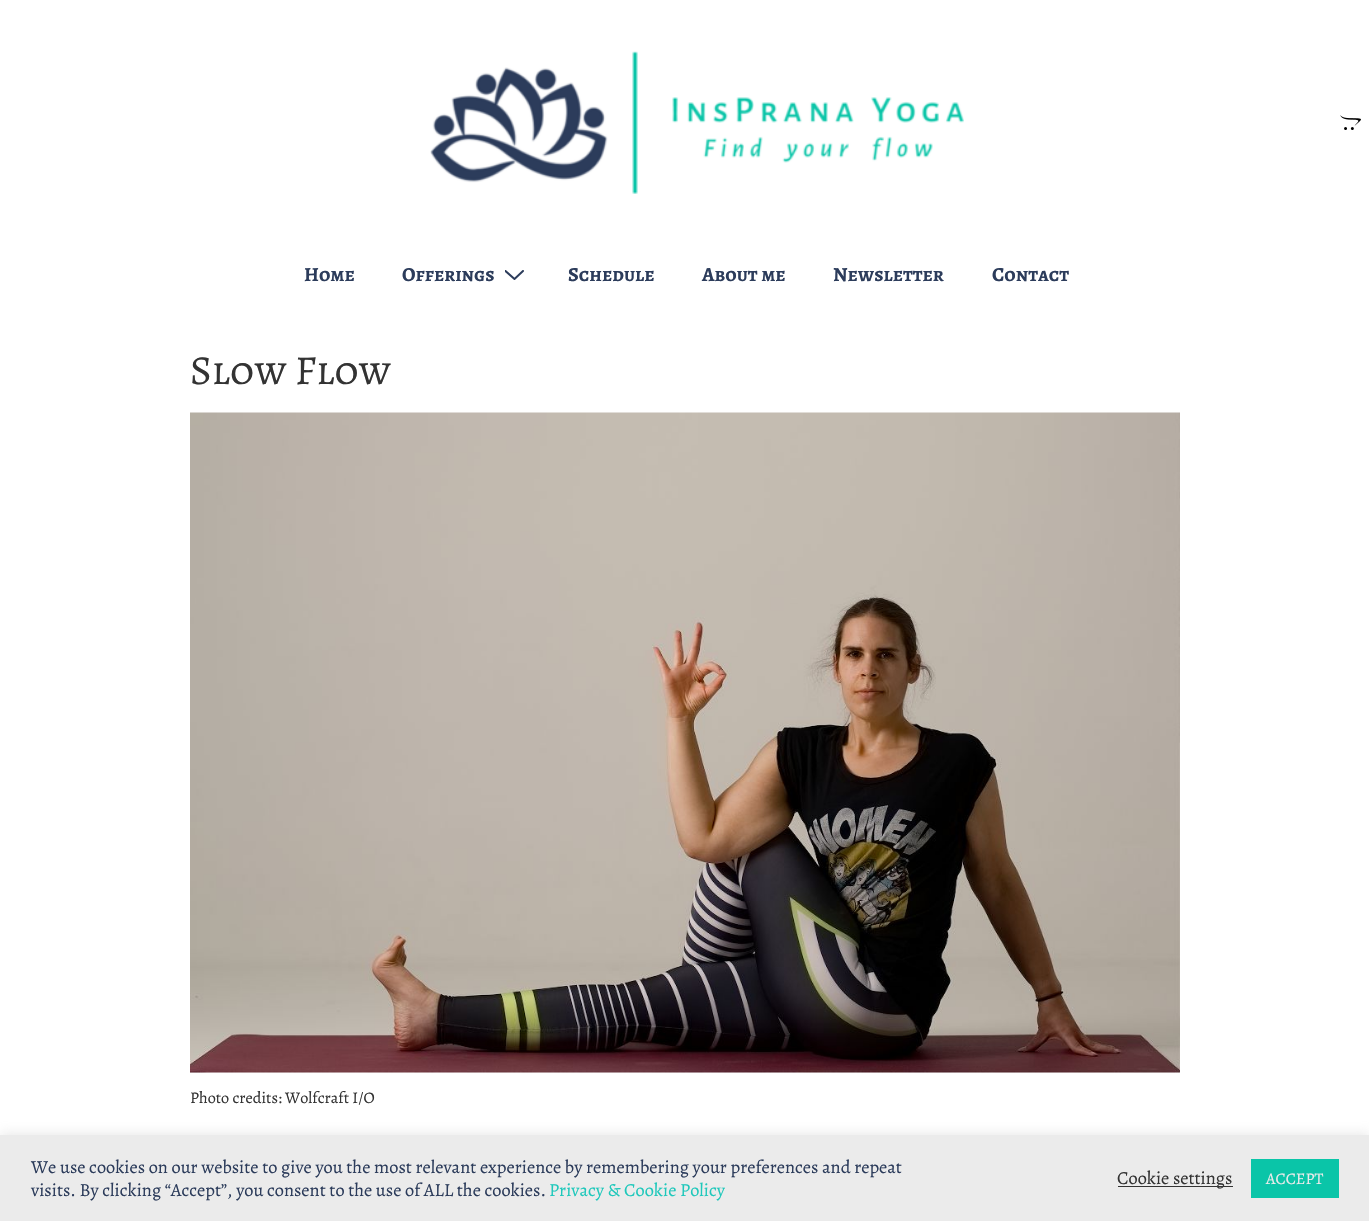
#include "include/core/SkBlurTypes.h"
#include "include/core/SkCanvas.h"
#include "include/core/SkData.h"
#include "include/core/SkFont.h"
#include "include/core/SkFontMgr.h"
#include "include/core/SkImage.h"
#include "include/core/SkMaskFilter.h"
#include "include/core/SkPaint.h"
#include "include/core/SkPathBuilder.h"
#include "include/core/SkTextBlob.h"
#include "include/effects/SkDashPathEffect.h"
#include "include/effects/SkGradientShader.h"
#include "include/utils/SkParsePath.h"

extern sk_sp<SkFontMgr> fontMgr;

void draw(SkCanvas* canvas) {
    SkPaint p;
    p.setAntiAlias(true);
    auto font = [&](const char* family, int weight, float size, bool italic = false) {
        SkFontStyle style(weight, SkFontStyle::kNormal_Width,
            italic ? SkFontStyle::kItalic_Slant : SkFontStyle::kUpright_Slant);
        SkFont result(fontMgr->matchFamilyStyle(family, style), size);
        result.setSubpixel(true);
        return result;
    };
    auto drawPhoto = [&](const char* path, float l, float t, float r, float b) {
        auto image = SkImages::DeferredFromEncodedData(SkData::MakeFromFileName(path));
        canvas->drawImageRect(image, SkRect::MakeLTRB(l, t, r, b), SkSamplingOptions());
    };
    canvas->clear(0xFFFFFFFF);
    drawPhoto("media/1.png", 430, 51, 964, 194);
    drawPhoto("media/2.png", 1340, 115, 1361, 130);
    auto font1 = font("Alegreya SC", 700, 20);
    p.setColor(0xFF2C3C5B);
    canvas->drawString("Home", 304, 281, font1, p);
    canvas->drawString("Offerings", 402, 281, font1, p);
    canvas->save();
    canvas->clipRect(SkRect::MakeLTRB(505, 270, 524, 280));
    p.setStyle(SkPaint::kStroke_Style);
    p.setStrokeWidth(2);
    p.setStrokeCap(SkPaint::kRound_Cap);
    canvas->drawPath(SkPathBuilder().moveTo(505.5f, 271).lineTo(514.5f, 279).lineTo(523, 271).detach(), p);
    canvas->restore();
    p.setStyle(SkPaint::kFill_Style);
    {
        const struct { const char* s; float x, y; } items[] = {
            {"Schedule", 568, 281},
            {"About me", 702, 281},
            {"Newsletter", 833, 281},
            {"Contact", 992, 281},
        };
        for (auto [s, x, y] : items) {
            canvas->drawString(s, x, y, font1, p);
        }
    }
    auto font2 = font("Alegreya SC", 400, 41.25f);
    p.setColor(0xFF333333);
    canvas->drawString("Slow Flow", 190, 384, font2, p);
    drawPhoto("media/3.png", 190, 412, 1180, 1073);
    auto font3 = font("Alegreya", 400, 16.25f);
    canvas->drawString("Photo credits: Wolfcraft I/O", 190, 1103, font3, p);
    p.setColor(0x4DACABAB);
    p.setMaskFilter(SkMaskFilter::MakeBlur(kNormal_SkBlurStyle, 6));
    canvas->drawRect(SkRect::MakeLTRB(0, 1134, 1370, 1220), p);
    p.setMaskFilter(nullptr);
    p.setColor(0xFFEBEBEB);
    canvas->drawRect(SkRect::MakeLTRB(0, 1135, 1369, 1221), p);
    auto font4 = font("Alegreya", 400, 18.35f);
    p.setColor(0xFF2C3C5B);
    canvas->drawString("We use cookies on our website to give you the most relevant experience by remembering your preferences and repeat", 31, 1173, font4, p);
    canvas->drawString("visits. By clicking “Accept”, you consent to the use of ALL the cookies.", 31, 1196, font4, p);
    p.setColor(0xFF1EC8BB);
    canvas->drawString("Privacy & Cookie Policy", 549, 1196, font4, p);
    p.setColor(0xFF333333);
    canvas->drawRect(SkRect::MakeLTRB(1118, 1186, 1233, 1187), p);
    canvas->drawString("Cookie settings", 1117, 1184, font4, p);
    p.setColor(0xFF0AC5A8);
    canvas->drawRect(SkRect::MakeLTRB(1251, 1159, 1339, 1198), p);
    p.setColor(0xFFEBEBEB);
    canvas->drawString("ACCEPT", 1266, 1184, font3, p);
}
